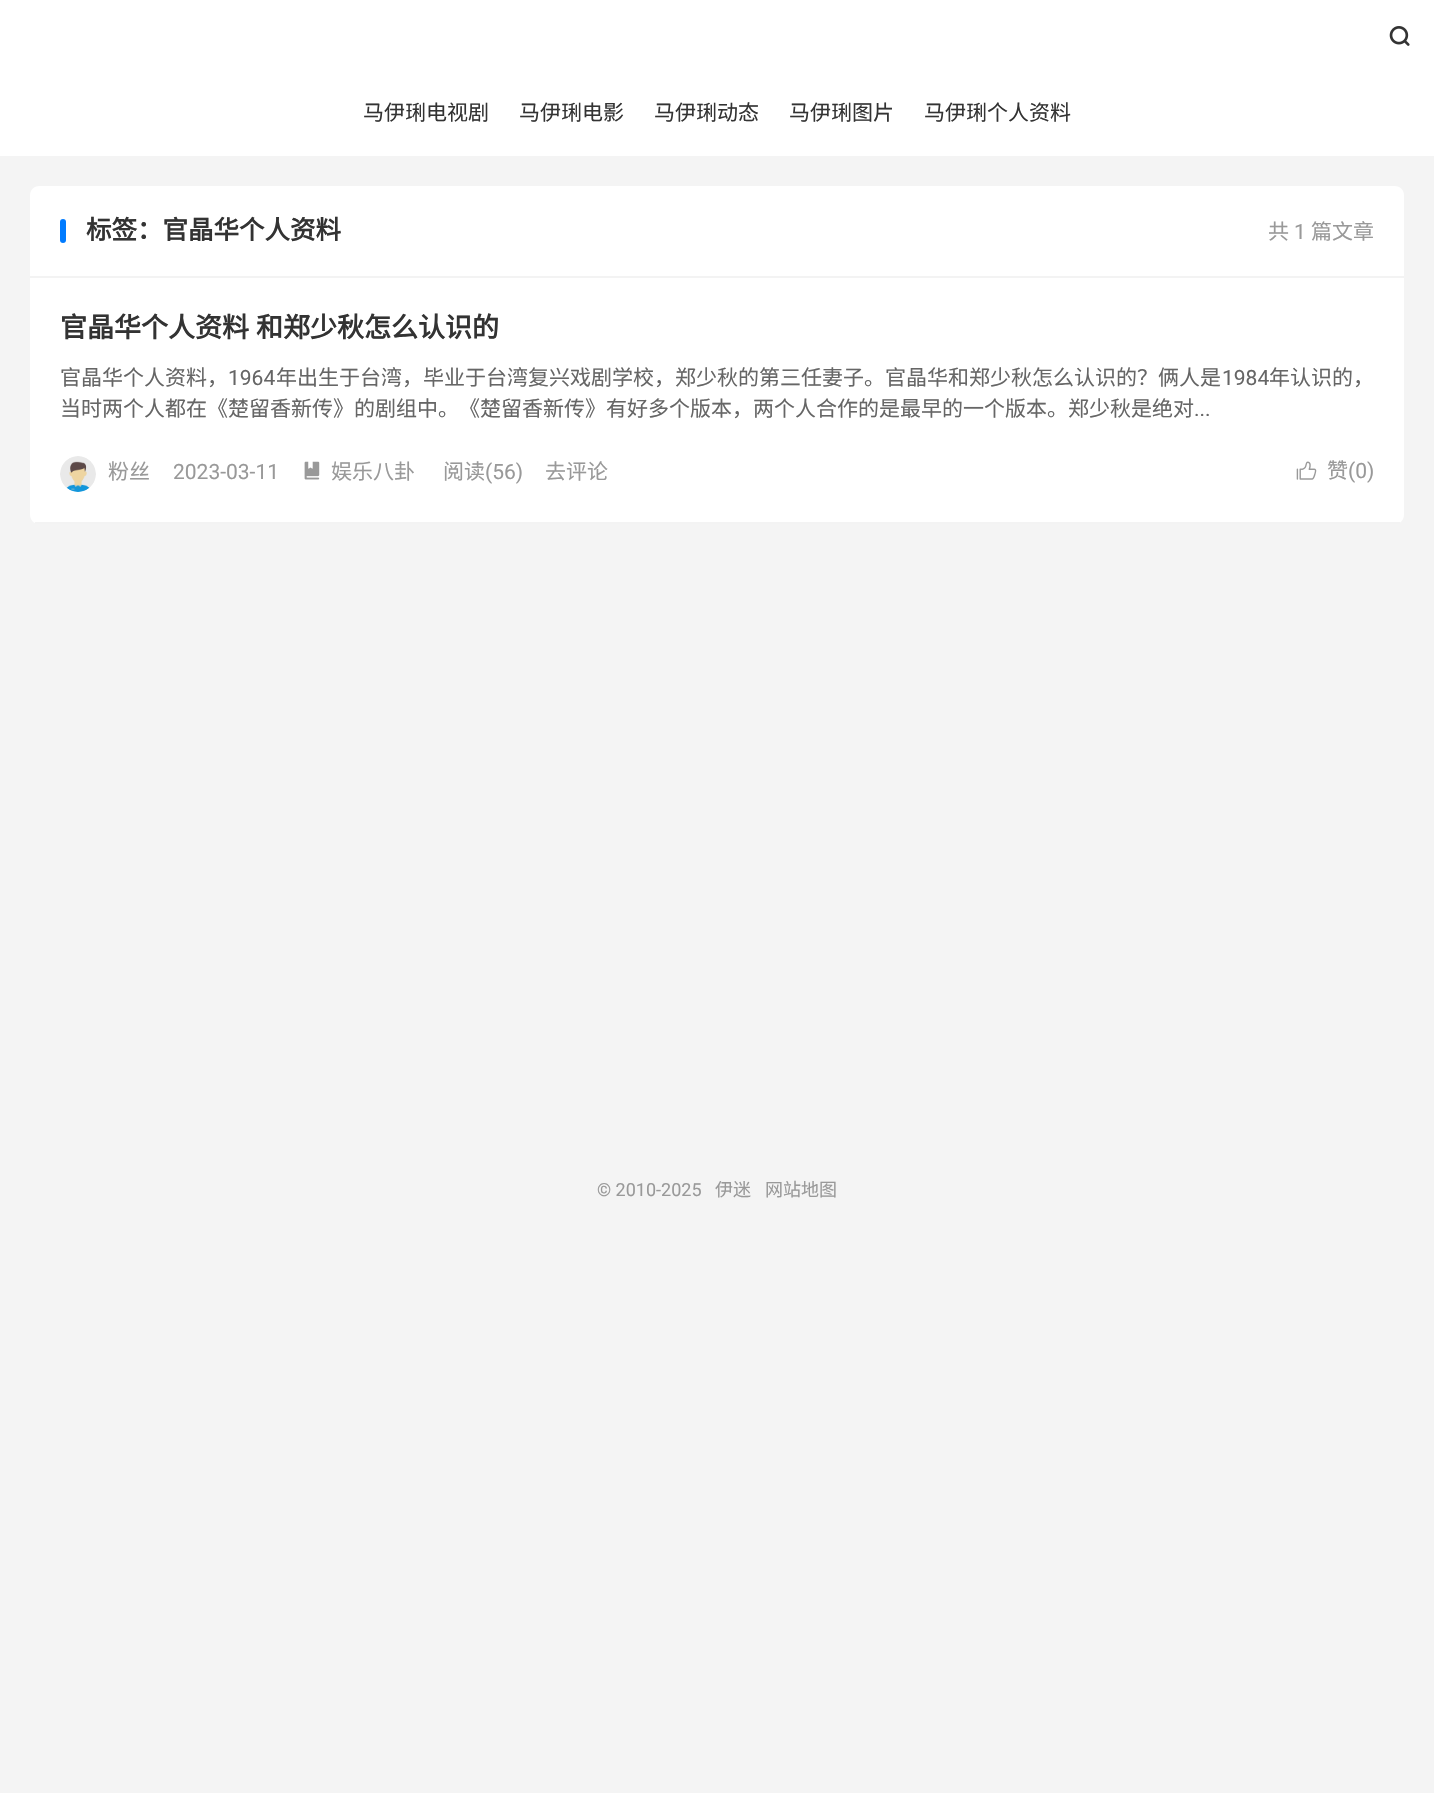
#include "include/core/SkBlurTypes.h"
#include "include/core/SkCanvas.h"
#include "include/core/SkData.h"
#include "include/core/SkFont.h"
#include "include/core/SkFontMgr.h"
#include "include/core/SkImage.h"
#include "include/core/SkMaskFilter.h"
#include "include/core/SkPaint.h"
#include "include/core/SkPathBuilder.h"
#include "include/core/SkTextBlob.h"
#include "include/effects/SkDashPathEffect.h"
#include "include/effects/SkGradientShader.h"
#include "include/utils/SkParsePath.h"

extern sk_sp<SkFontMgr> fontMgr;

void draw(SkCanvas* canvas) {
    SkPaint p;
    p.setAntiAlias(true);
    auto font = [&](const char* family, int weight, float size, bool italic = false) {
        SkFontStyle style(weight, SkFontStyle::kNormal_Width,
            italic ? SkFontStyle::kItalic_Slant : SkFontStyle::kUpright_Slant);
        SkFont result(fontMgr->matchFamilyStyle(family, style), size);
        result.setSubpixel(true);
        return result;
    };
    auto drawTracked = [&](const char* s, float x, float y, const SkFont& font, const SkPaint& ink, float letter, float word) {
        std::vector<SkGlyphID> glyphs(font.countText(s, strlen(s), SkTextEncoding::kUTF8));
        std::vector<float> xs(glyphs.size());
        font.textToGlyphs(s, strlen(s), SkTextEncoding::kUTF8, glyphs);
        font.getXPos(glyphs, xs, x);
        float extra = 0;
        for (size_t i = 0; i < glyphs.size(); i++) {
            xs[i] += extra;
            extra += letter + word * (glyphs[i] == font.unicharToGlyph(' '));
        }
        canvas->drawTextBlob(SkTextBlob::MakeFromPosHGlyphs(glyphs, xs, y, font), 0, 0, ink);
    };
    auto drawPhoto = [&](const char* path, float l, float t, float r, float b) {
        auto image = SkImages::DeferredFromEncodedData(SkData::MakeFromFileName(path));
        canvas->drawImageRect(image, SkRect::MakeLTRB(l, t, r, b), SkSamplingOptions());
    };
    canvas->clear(0xFFF4F4F4);
    p.setColor(0xFFFFFFFF);
    canvas->drawRect(SkRect::MakeLTRB(0, 0, 1434, 156), p);
    drawPhoto("media/1.png", 1389, 26, 1410, 46);
    auto font1 = font("Noto Sans CJK SC", 400, 21);
    p.setColor(0xFF333333);
    {
        const struct { const char* s; float x, y; } items[] = {
            {"马伊琍电视剧", 363, 120},
            {"马伊琍电影", 519, 120},
            {"马伊琍动态", 654, 120},
            {"马伊琍图片", 789, 120},
            {"马伊琍个人资料", 924, 120},
        };
        for (auto [s, x, y] : items) {
            canvas->drawString(s, x, y, font1, p);
        }
    }
    p.setColor(0xFFFFFFFF);
    canvas->drawPath(SkPathBuilder().moveTo(39, 186).lineTo(1395, 186).cubicTo(1400, 186, 1404, 190, 1404, 195).lineTo(1404, 278).lineTo(30, 278).lineTo(30, 195).cubicTo(30, 190, 34, 186, 39, 186).close().detach(), p);
    p.setColor(0xFFF3F3F3);
    canvas->drawRect(SkRect::MakeLTRB(30, 276, 1404, 278), p);
    p.setColor(0xFF007BFF);
    canvas->drawRoundRect(SkRect::MakeLTRB(60, 219, 66, 243), 3, 3, p);
    auto font2 = font("Noto Sans CJK SC", 700, 25.5f);
    p.setColor(0xFF333333);
    canvas->drawString("标签：官晶华个人资料", 86, 239, font2, p);
    p.setColor(0xFF999999);
    canvas->drawString("共", 1268, 239, font1, p);
    auto font3 = font("Roboto", 400, 21);
    canvas->drawString("1", 1294, 239, font3, p);
    canvas->drawString("篇文章", 1311, 239, font1, p);
    p.setColor(0xFFFFFFFF);
    canvas->drawPath(SkPathBuilder().moveTo(30, 278).lineTo(1404, 278).lineTo(1404, 515).cubicTo(1404, 520, 1400, 524, 1395, 524).lineTo(39, 524).cubicTo(34, 524, 30, 520, 30, 515).close().detach(), p);
    p.setColor(0xFFF3F3F3);
    canvas->drawRect(SkRect::MakeLTRB(35, 522, 1400, 524), p);
    auto font4 = font("Noto Sans CJK SC", 700, 27);
    p.setColor(0xFF333333);
    drawTracked("官晶华个人资料 和郑少秋怎么认识的", 60, 337, font4, p, 0, 1);
    p.setColor(0xFF666666);
    canvas->drawString("官晶华个人资料，", 60, 385, font1, p);
    canvas->drawString("1964", 228, 385, font3, p);
    canvas->drawString("年出生于台湾，毕业于台湾复兴戏剧学校，郑少秋的第三任妻子。官晶华和郑少秋怎么认识的？俩人是", 276, 385, font1, p);
    canvas->drawString("1984", 1222, 385, font3, p);
    canvas->drawString("年认识的，", 1269, 385, font1, p);
    canvas->drawString("当时两个人都在《楚留香新传》的剧组中。《楚留香新传》有好多个版本，两个人合作的是最早的一个版本。郑少秋是绝对", 60, 416, font1, p);
    canvas->drawString("...", 1194, 416, font3, p);
    drawPhoto("media/2.png", 60, 456, 96, 492);
    p.setColor(0xFF999999);
    canvas->drawString("粉丝", 108, 479, font1, p);
    canvas->drawString("2023-03-11", 173, 479, font3, p);
    drawPhoto("media/3.png", 304, 461, 320, 480);
    canvas->drawString("娱乐八卦", 331, 479, font1, p);
    canvas->drawString("阅读", 443, 479, font1, p);
    canvas->drawString("(56)", 485, 479, font3, p);
    canvas->drawString("去评论", 545, 479, font1, p);
    drawPhoto("media/4.png", 1296, 461, 1317, 480);
    canvas->drawString("赞", 1327, 478, font1, p);
    canvas->drawString("(0)", 1348, 478, font3, p);
    auto font5 = font("Roboto", 400, 18);
    canvas->drawString("© 2010-2025", 597, 1196, font5, p);
    auto font6 = font("Noto Sans CJK SC", 400, 18);
    canvas->drawString("伊迷", 715, 1196, font6, p);
    canvas->drawString("网站地图", 765, 1196, font6, p);
}
